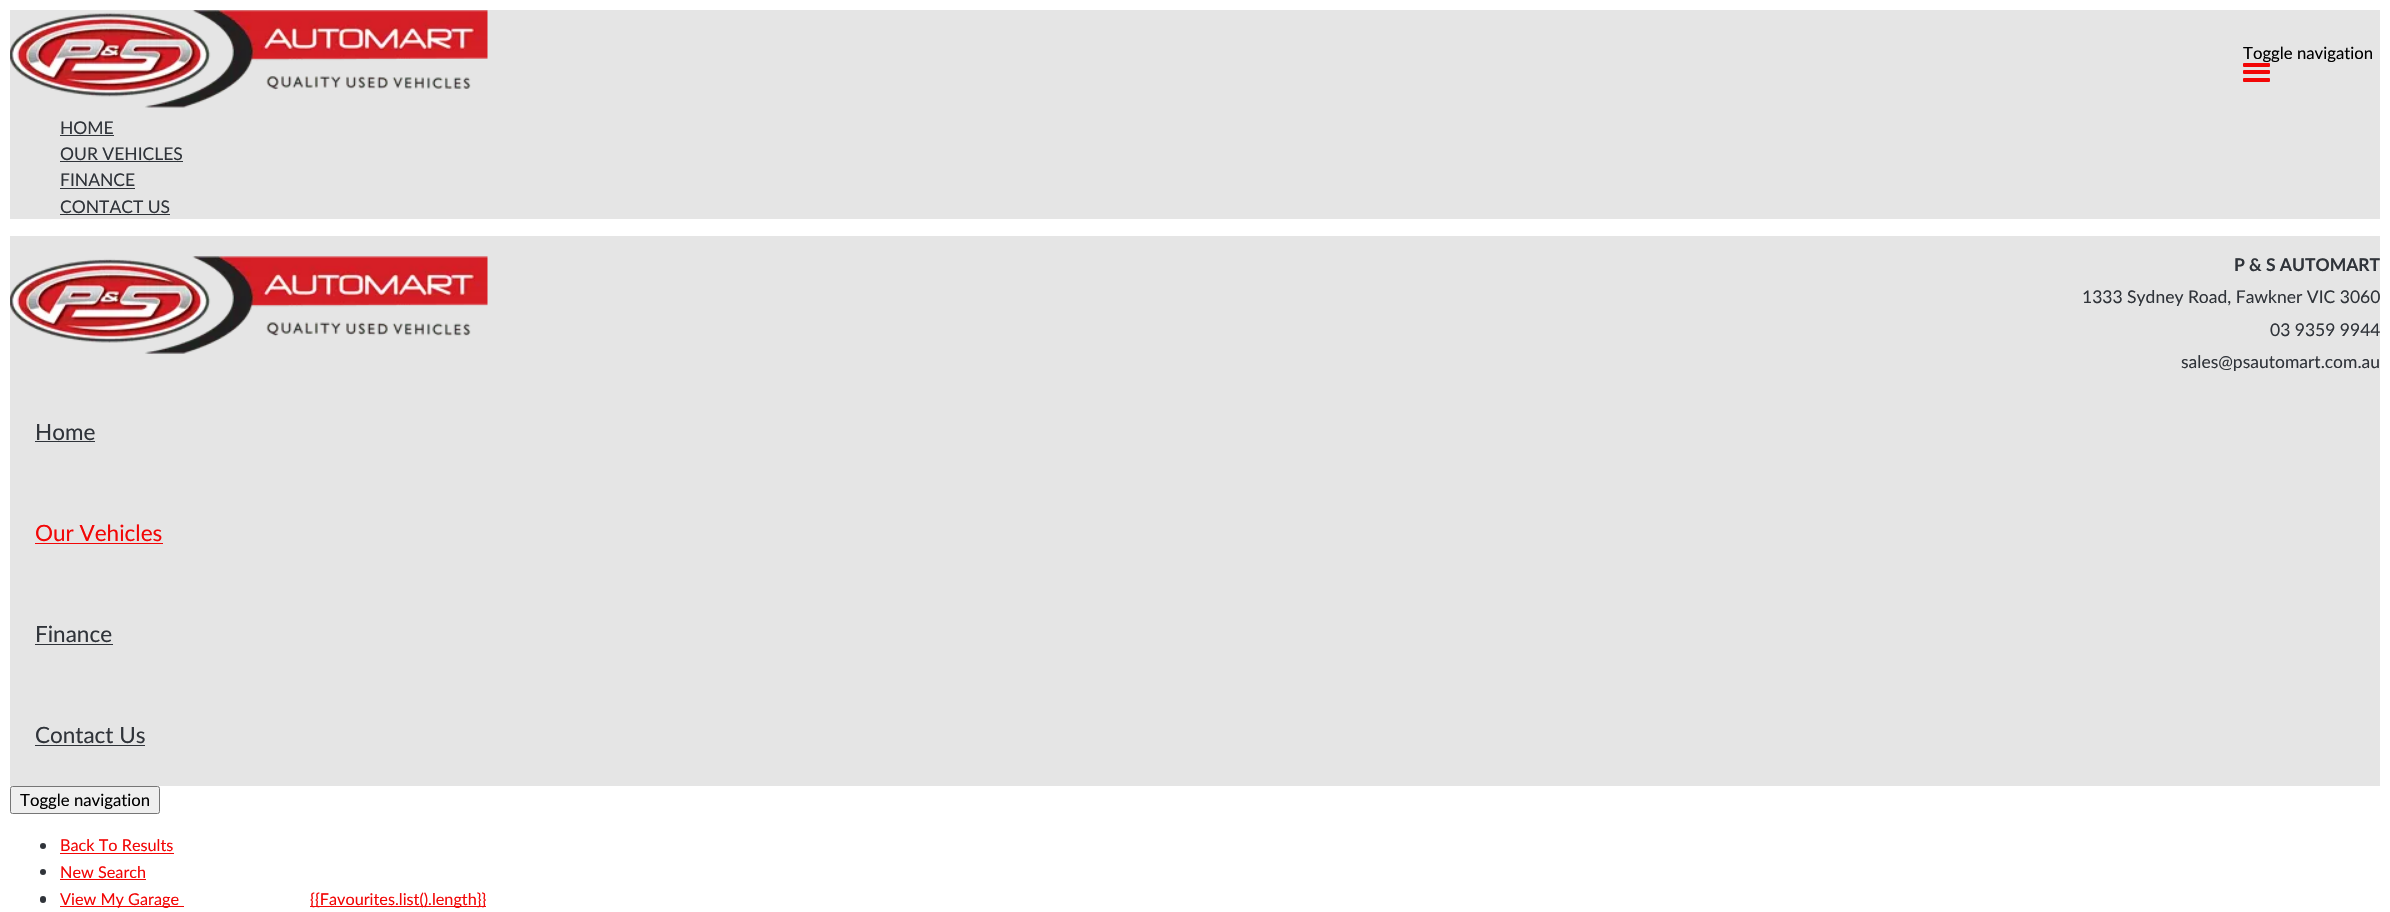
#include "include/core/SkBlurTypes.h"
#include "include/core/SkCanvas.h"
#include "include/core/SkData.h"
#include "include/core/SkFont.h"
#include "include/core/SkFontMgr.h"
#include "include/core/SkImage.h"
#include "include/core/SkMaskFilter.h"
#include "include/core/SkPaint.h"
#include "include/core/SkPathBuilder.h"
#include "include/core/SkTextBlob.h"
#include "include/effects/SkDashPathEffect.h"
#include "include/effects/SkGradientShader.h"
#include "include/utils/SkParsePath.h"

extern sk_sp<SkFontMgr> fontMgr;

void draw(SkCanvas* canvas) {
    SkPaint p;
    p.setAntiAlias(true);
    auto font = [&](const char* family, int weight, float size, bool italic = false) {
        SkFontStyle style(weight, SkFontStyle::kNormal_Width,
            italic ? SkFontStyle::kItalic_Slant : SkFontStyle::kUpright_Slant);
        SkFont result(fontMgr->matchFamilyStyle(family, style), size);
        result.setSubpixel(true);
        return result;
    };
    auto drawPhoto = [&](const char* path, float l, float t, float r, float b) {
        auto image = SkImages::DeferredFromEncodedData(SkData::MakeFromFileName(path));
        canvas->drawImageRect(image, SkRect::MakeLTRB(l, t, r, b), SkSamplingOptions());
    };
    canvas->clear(0xFFFFFFFF);
    p.setColor(0xFFE5E5E5);
    canvas->drawRect(SkRect::MakeLTRB(10, 10, 2380, 219), p);
    drawPhoto("media/1.png", 10, 10, 488, 108);
    auto font1 = font("Lato", 400, 16.75f);
    p.setColor(0xFF000000);
    canvas->drawString("Toggle navigation", 2243, 59, font1, p);
    p.setColor(0xFFF20707);
    canvas->drawRoundRect(SkRect::MakeLTRB(2243, 63, 2270, 67), 1, 1, p);
    canvas->drawRoundRect(SkRect::MakeLTRB(2243, 70, 2270, 74), 1, 1, p);
    canvas->drawRoundRect(SkRect::MakeLTRB(2243, 78, 2270, 82), 1, 1, p);
    auto font2 = font("Lato", 400, 17.5f);
    p.setColor(0xFF30343A);
    canvas->drawString("HOME", 60, 134, font2, p);
    canvas->drawRect(SkRect::MakeLTRB(60, 135, 114, 136), p);
    canvas->drawString("OUR VEHICLES", 60, 160, font2, p);
    canvas->drawRect(SkRect::MakeLTRB(60, 161, 183, 162), p);
    canvas->drawString("FINANCE", 60, 186, font2, p);
    canvas->drawRect(SkRect::MakeLTRB(60, 188, 135, 189), p);
    canvas->drawString("CONTACT US", 60, 213, font2, p);
    canvas->drawRect(SkRect::MakeLTRB(60, 214, 170, 215), p);
    p.setColor(0xFFE5E5E5);
    canvas->drawRect(SkRect::MakeLTRB(10, 236, 2380, 786), p);
    drawPhoto("media/2.png", 10, 256, 488, 354);
    auto font3 = font("Lato", 700, 17.5f);
    p.setColor(0xFF30343A);
    canvas->drawString("P & S AUTOMART", 2234, 271, font3, p);
    {
        const struct { const char* s; float x, y; } items[] = {
            {"1333 Sydney Road, Fawkner VIC 3060", 2082, 303},
            {"03 9359 9944", 2270, 336},
            {"sales@psautomart.com.au", 2181, 368},
        };
        for (auto [s, x, y] : items) {
            canvas->drawString(s, x, y, font2, p);
        }
    }
    auto font4 = font("Lato", 400, 22.5f);
    canvas->drawString("Home", 35, 440, font4, p);
    canvas->drawRect(SkRect::MakeLTRB(35, 441, 95, 442), p);
    p.setColor(0xFFF20707);
    canvas->drawString("Our Vehicles", 35, 541, font4, p);
    canvas->drawRect(SkRect::MakeLTRB(35, 543, 163, 544), p);
    p.setColor(0xFF30343A);
    canvas->drawString("Finance", 35, 642, font4, p);
    canvas->drawRect(SkRect::MakeLTRB(35, 644, 113, 645), p);
    canvas->drawString("Contact Us", 35, 743, font4, p);
    canvas->drawRect(SkRect::MakeLTRB(35, 745, 145, 746), p);
    p.setColor(0xFFEFEFEF);
    canvas->drawRoundRect(SkRect::MakeLTRB(10.5f, 786.5f, 159.5f, 813.5f), 2, 2, p);
    p.setStyle(SkPaint::kStroke_Style);
    p.setStrokeWidth(1);
    p.setColor(0xFF767676);
    canvas->drawRoundRect(SkRect::MakeLTRB(10.5f, 786.5f, 159.5f, 813.5f), 2, 2, p);
    p.setStyle(SkPaint::kFill_Style);
    p.setColor(0xFF000000);
    canvas->drawString("Toggle navigation", 20, 806, font1, p);
    p.setColor(0xFF30343A);
    canvas->drawCircle(43, 846, 3, p);
    auto font5 = font("Lato", 400, 16.25f);
    p.setColor(0xFFF20707);
    canvas->drawString("Back To Results", 60, 851, font5, p);
    canvas->drawRect(SkRect::MakeLTRB(60, 853, 174, 854), p);
    p.setColor(0xFF30343A);
    canvas->drawCircle(43, 872, 3, p);
    p.setColor(0xFFF20707);
    canvas->drawString("New Search", 60, 878, font5, p);
    canvas->drawRect(SkRect::MakeLTRB(60, 879, 146, 880), p);
    p.setColor(0xFF30343A);
    canvas->drawRoundRect(SkRect::MakeLTRB(40, 896, 46, 903), 3, 3, p);
    p.setColor(0xFFF20707);
    canvas->drawRect(SkRect::MakeLTRB(60, 906, 184, 907), p);
    canvas->drawString("View My Garage", 60, 905, font5, p);
    canvas->drawRect(SkRect::MakeLTRB(310, 906, 486, 907), p);
    canvas->drawString("{{Favourites.list().length}}", 310, 905, font5, p);
}
